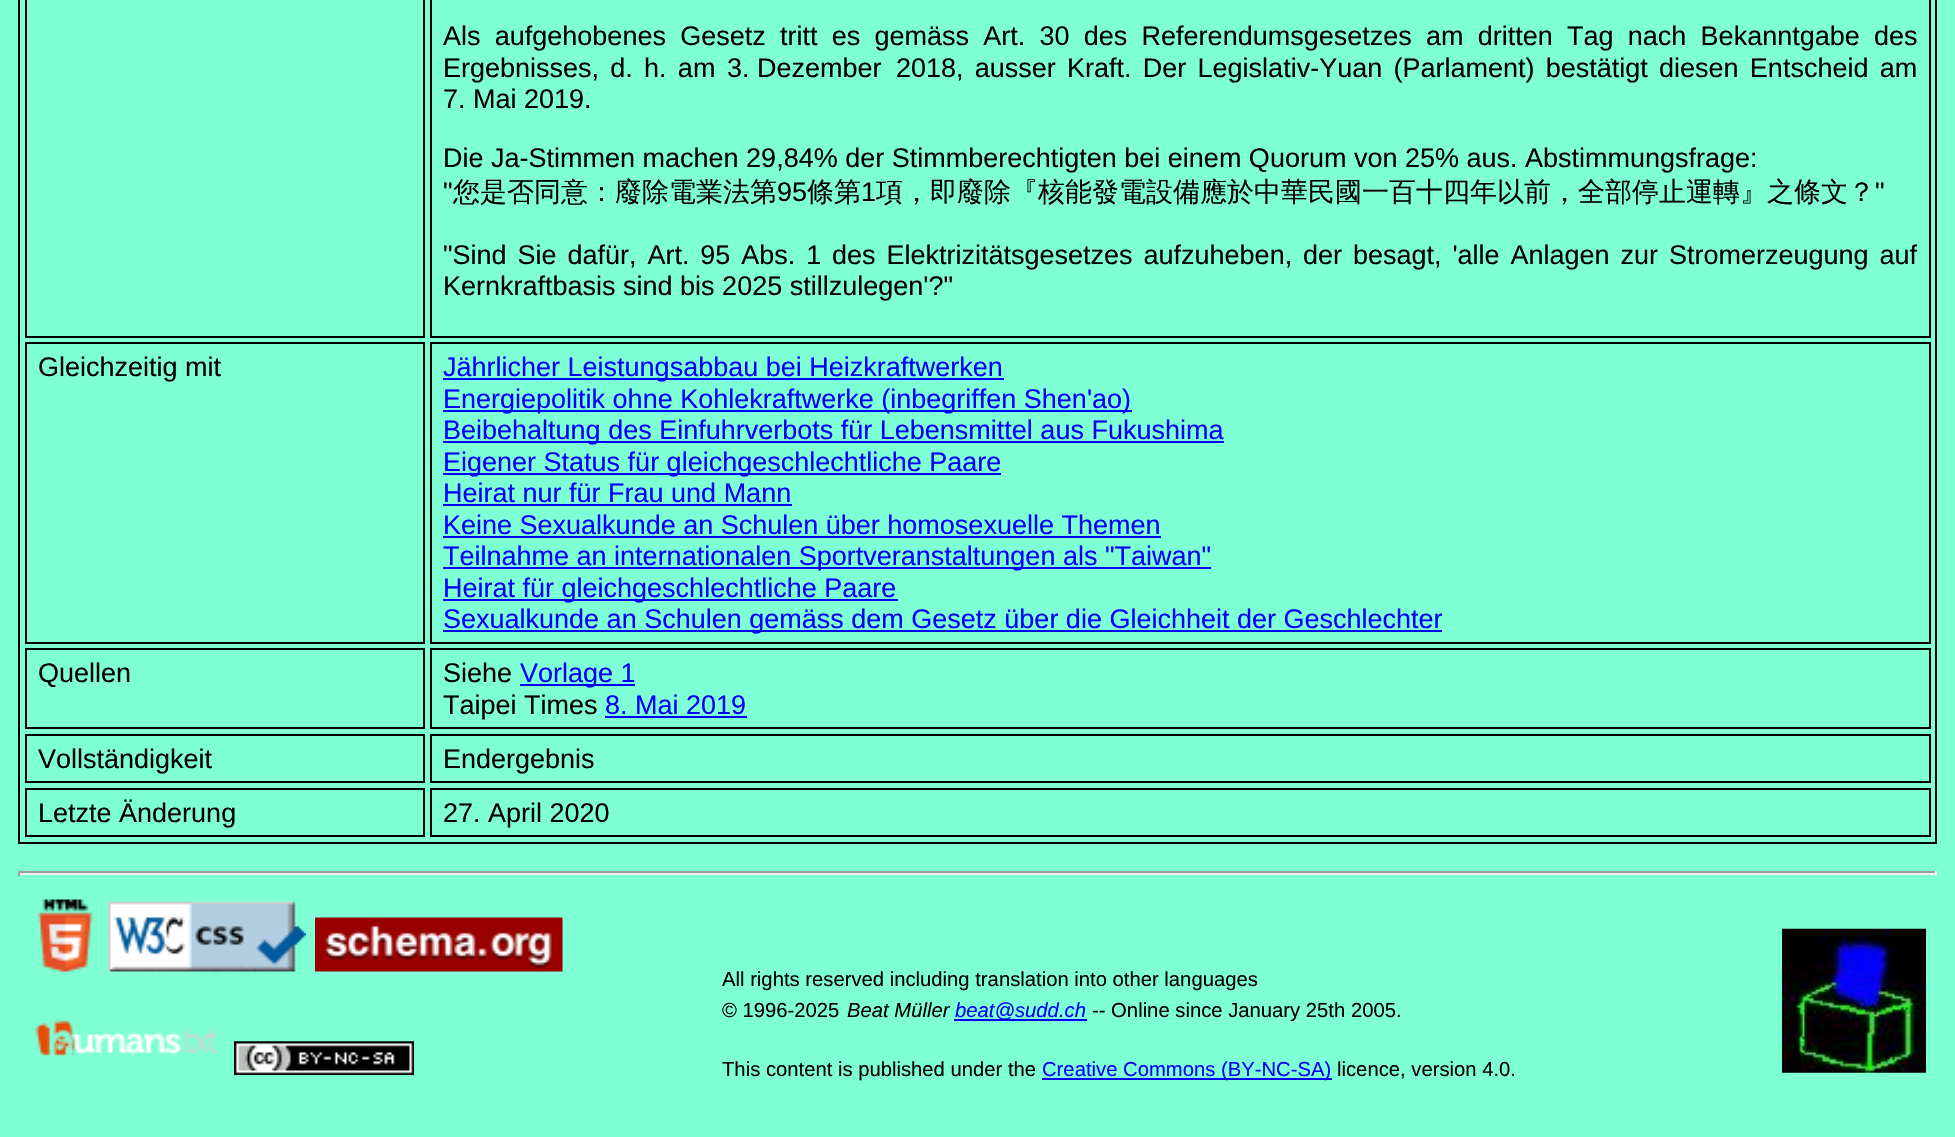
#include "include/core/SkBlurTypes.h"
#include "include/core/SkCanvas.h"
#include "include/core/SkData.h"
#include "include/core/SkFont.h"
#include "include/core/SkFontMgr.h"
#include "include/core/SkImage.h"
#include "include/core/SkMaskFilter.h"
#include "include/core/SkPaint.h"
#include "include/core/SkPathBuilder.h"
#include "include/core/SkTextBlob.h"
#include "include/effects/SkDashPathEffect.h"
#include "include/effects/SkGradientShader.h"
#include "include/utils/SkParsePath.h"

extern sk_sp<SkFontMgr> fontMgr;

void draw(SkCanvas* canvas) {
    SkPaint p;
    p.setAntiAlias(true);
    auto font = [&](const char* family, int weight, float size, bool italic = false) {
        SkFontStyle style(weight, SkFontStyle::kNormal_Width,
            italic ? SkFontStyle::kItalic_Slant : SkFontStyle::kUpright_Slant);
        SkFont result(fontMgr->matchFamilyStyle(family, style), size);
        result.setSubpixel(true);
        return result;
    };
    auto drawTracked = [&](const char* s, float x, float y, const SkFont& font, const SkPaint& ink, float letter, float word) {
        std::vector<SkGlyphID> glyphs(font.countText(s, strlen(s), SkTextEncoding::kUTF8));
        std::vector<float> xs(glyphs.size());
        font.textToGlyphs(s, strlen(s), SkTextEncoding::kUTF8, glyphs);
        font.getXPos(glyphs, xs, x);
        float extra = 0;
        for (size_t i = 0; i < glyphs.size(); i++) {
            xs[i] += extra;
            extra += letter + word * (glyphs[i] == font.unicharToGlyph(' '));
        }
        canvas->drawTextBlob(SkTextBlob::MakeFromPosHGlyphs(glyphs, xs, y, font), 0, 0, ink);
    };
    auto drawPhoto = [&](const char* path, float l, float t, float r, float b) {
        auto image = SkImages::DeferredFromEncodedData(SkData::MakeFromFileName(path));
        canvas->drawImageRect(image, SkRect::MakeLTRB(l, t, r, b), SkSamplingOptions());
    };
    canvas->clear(0xFF7FFFD4);
    p.setStyle(SkPaint::kStroke_Style);
    p.setStrokeWidth(2);
    p.setColor(0xFF000000);
    canvas->drawRect(SkRect::MakeLTRB(19, -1, 1936, 843), p);
    canvas->drawRect(SkRect::MakeLTRB(26, -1, 424, 337), p);
    canvas->drawRect(SkRect::MakeLTRB(431, -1, 1930, 337), p);
    auto font1 = font("Liberation Sans", 400, 27);
    p.setStyle(SkPaint::kFill_Style);
    drawTracked("Als aufgehobenes Gesetz tritt es gemäss Art. 30 des Referendumsgesetzes am dritten Tag nach Bekanntgabe des", 443, 45, font1, p, 0, 6.75f);
    drawTracked("Ergebnisses, d. h. am", 443, 77, font1, p, 0, 3.75f);
    canvas->drawString("3. Dezember", 727, 77, font1, p);
    canvas->drawString("2018", 896, 77, font1, p);
    drawTracked(", ausser Kraft. Der Legislativ-Yuan (Parlament) bestätigt diesen Entscheid am", 956, 77, font1, p, 0, 3.75f);
    {
        const struct { const char* s; float x, y; } items[] = {
            {"7. Mai 2019.", 443, 108},
            {"Die Ja-Stimmen machen 29,84% der Stimmberechtigten bei einem Quorum von 25% aus. Abstimmungsfrage:", 443, 167},
            {"\"", 443, 201},
        };
        for (auto [s, x, y] : items) {
            canvas->drawString(s, x, y, font1, p);
        }
    }
    auto font2 = font("WenQuanYi Zen Hei", 500, 27);
    canvas->drawString("您是否同意：廢除電業法第", 453, 201, font2, p);
    canvas->drawString("95", 777, 201, font1, p);
    canvas->drawString("條第", 807, 201, font2, p);
    canvas->drawString("1", 861, 201, font1, p);
    canvas->drawString("項，即廢除『核能發電設備應於中華民國一百十四年以前，全部停止運轉』之條文？", 876, 201, font2, p);
    canvas->drawString("\"", 1875, 201, font1, p);
    drawTracked("\"Sind Sie dafür, Art. 95 Abs. 1 des Elektrizitätsgesetzes aufzuheben, der besagt, 'alle Anlagen zur Stromerzeugung auf", 443, 264, font1, p, 0, 3.4f);
    canvas->drawString("Kernkraftbasis sind bis 2025 stillzulegen'?\"", 443, 295, font1, p);
    p.setStyle(SkPaint::kStroke_Style);
    canvas->drawRect(SkRect::MakeLTRB(26, 343, 424, 643), p);
    p.setStyle(SkPaint::kFill_Style);
    canvas->drawString("Gleichzeitig mit", 38, 376, font1, p);
    p.setStyle(SkPaint::kStroke_Style);
    canvas->drawRect(SkRect::MakeLTRB(431, 343, 1930, 643), p);
    p.setStyle(SkPaint::kFill_Style);
    p.setColor(0xFF0000FF);
    canvas->drawRect(SkRect::MakeLTRB(443, 378, 1004, 380), p);
    canvas->drawString("Jährlicher Leistungsabbau bei Heizkraftwerken", 443, 376, font1, p);
    canvas->drawRect(SkRect::MakeLTRB(443, 410, 1132, 412), p);
    canvas->drawString("Energiepolitik ohne Kohlekraftwerke (inbegriffen Shen'ao)", 443, 408, font1, p);
    canvas->drawRect(SkRect::MakeLTRB(443, 441, 1224, 443), p);
    canvas->drawString("Beibehaltung des Einfuhrverbots für Lebensmittel aus Fukushima", 443, 439, font1, p);
    canvas->drawRect(SkRect::MakeLTRB(443, 473, 1001, 475), p);
    canvas->drawString("Eigener Status für gleichgeschlechtliche Paare", 443, 471, font1, p);
    canvas->drawString("Heirat nur für Frau und Mann", 443, 502, font1, p);
    canvas->drawRect(SkRect::MakeLTRB(443, 504, 792, 506), p);
    canvas->drawString("Keine Sexualkunde an Schulen über homosexuelle Themen", 443, 534, font1, p);
    canvas->drawRect(SkRect::MakeLTRB(443, 536, 1161, 538), p);
    canvas->drawRect(SkRect::MakeLTRB(443, 567, 1211, 569), p);
    canvas->drawString("Teilnahme an internationalen Sportveranstaltungen als \"Taiwan\"", 443, 565, font1, p);
    canvas->drawRect(SkRect::MakeLTRB(443, 599, 898, 601), p);
    canvas->drawString("Heirat für gleichgeschlechtliche Paare", 443, 597, font1, p);
    canvas->drawRect(SkRect::MakeLTRB(443, 630, 1442, 632), p);
    canvas->drawString("Sexualkunde an Schulen gemäss dem Gesetz über die Gleichheit der Geschlechter", 443, 628, font1, p);
    p.setStyle(SkPaint::kStroke_Style);
    p.setColor(0xFF000000);
    canvas->drawRect(SkRect::MakeLTRB(26, 649, 424, 728), p);
    p.setStyle(SkPaint::kFill_Style);
    canvas->drawString("Quellen", 38, 682, font1, p);
    p.setStyle(SkPaint::kStroke_Style);
    canvas->drawRect(SkRect::MakeLTRB(431, 649, 1930, 728), p);
    p.setStyle(SkPaint::kFill_Style);
    canvas->drawString("Siehe", 443, 682, font1, p);
    p.setColor(0xFF0000FF);
    canvas->drawRect(SkRect::MakeLTRB(520, 684, 635, 686), p);
    canvas->drawString("Vorlage 1", 520, 682, font1, p);
    p.setColor(0xFF000000);
    canvas->drawString("Taipei Times", 443, 714, font1, p);
    p.setColor(0xFF0000FF);
    canvas->drawString("8. Mai 2019", 605, 714, font1, p);
    canvas->drawRect(SkRect::MakeLTRB(605, 716, 747, 718), p);
    p.setStyle(SkPaint::kStroke_Style);
    p.setColor(0xFF000000);
    canvas->drawRect(SkRect::MakeLTRB(26, 735, 424, 782), p);
    p.setStyle(SkPaint::kFill_Style);
    canvas->drawString("Vollständigkeit", 38, 768, font1, p);
    p.setStyle(SkPaint::kStroke_Style);
    canvas->drawRect(SkRect::MakeLTRB(431, 735, 1930, 782), p);
    p.setStyle(SkPaint::kFill_Style);
    canvas->drawString("Endergebnis", 443, 768, font1, p);
    p.setStyle(SkPaint::kStroke_Style);
    canvas->drawRect(SkRect::MakeLTRB(26, 789, 424, 836), p);
    p.setStyle(SkPaint::kFill_Style);
    canvas->drawString("Letzte Änderung", 38, 822, font1, p);
    p.setStyle(SkPaint::kStroke_Style);
    canvas->drawRect(SkRect::MakeLTRB(431, 789, 1930, 836), p);
    p.setStyle(SkPaint::kFill_Style);
    canvas->drawString("27. April 2020", 443, 822, font1, p);
    {
        const struct { float l, t, r, b; SkColor color; } items[] = {
            {18, 871, 1937, 873, 0xFF9F9F9F},
            {1935, 871, 1937, 876, 0xFFEEEEEE},
            {18, 873, 1937, 875, 0xFFEEEEEE},
            {18, 871, 20, 876, 0xFF9F9F9F},
        };
        for (auto [l, t, r, b, color] : items) {
            p.setColor(color);
            canvas->drawRect(SkRect::MakeLTRB(l, t, r, b), p);
        }
    }
    drawPhoto("media/1.png", 37, 899, 93, 972);
    drawPhoto("media/2.png", 108, 901, 306, 972);
    drawPhoto("media/3.png", 315, 917, 563, 972);
    drawPhoto("media/4.png", 35, 1020, 219, 1056);
    drawPhoto("media/5.png", 234, 1041, 414, 1075);
    auto font3 = font("Liberation Sans", 400, 20.25f);
    p.setColor(0xFF000000);
    canvas->drawString("All rights reserved including translation into other languages", 722, 986, font3, p);
    canvas->drawString("© 1996-2025", 722, 1017, font3, p);
    auto font4 = font("Liberation Sans", 400, 20.25f, true);
    canvas->drawString("Beat Müller", 847, 1017, font4, p);
    p.setColor(0xFF0000FF);
    canvas->drawRect(SkRect::MakeLTRB(954, 1019, 1087, 1021), p);
    canvas->drawString("beat@sudd.ch", 955, 1017, font4, p);
    p.setColor(0xFF000000);
    canvas->drawString("-- Online since January 25th 2005.", 1092, 1017, font3, p);
    canvas->drawString("This content is published under the", 722, 1076, font3, p);
    p.setColor(0xFF0000FF);
    canvas->drawRect(SkRect::MakeLTRB(1042, 1078, 1332, 1080), p);
    canvas->drawString("Creative Commons (BY-NC-SA)", 1042, 1076, font3, p);
    p.setColor(0xFF000000);
    canvas->drawString("licence, version 4.0.", 1337, 1076, font3, p);
    drawPhoto("media/6.png", 1782, 928, 1926, 1073);
}
